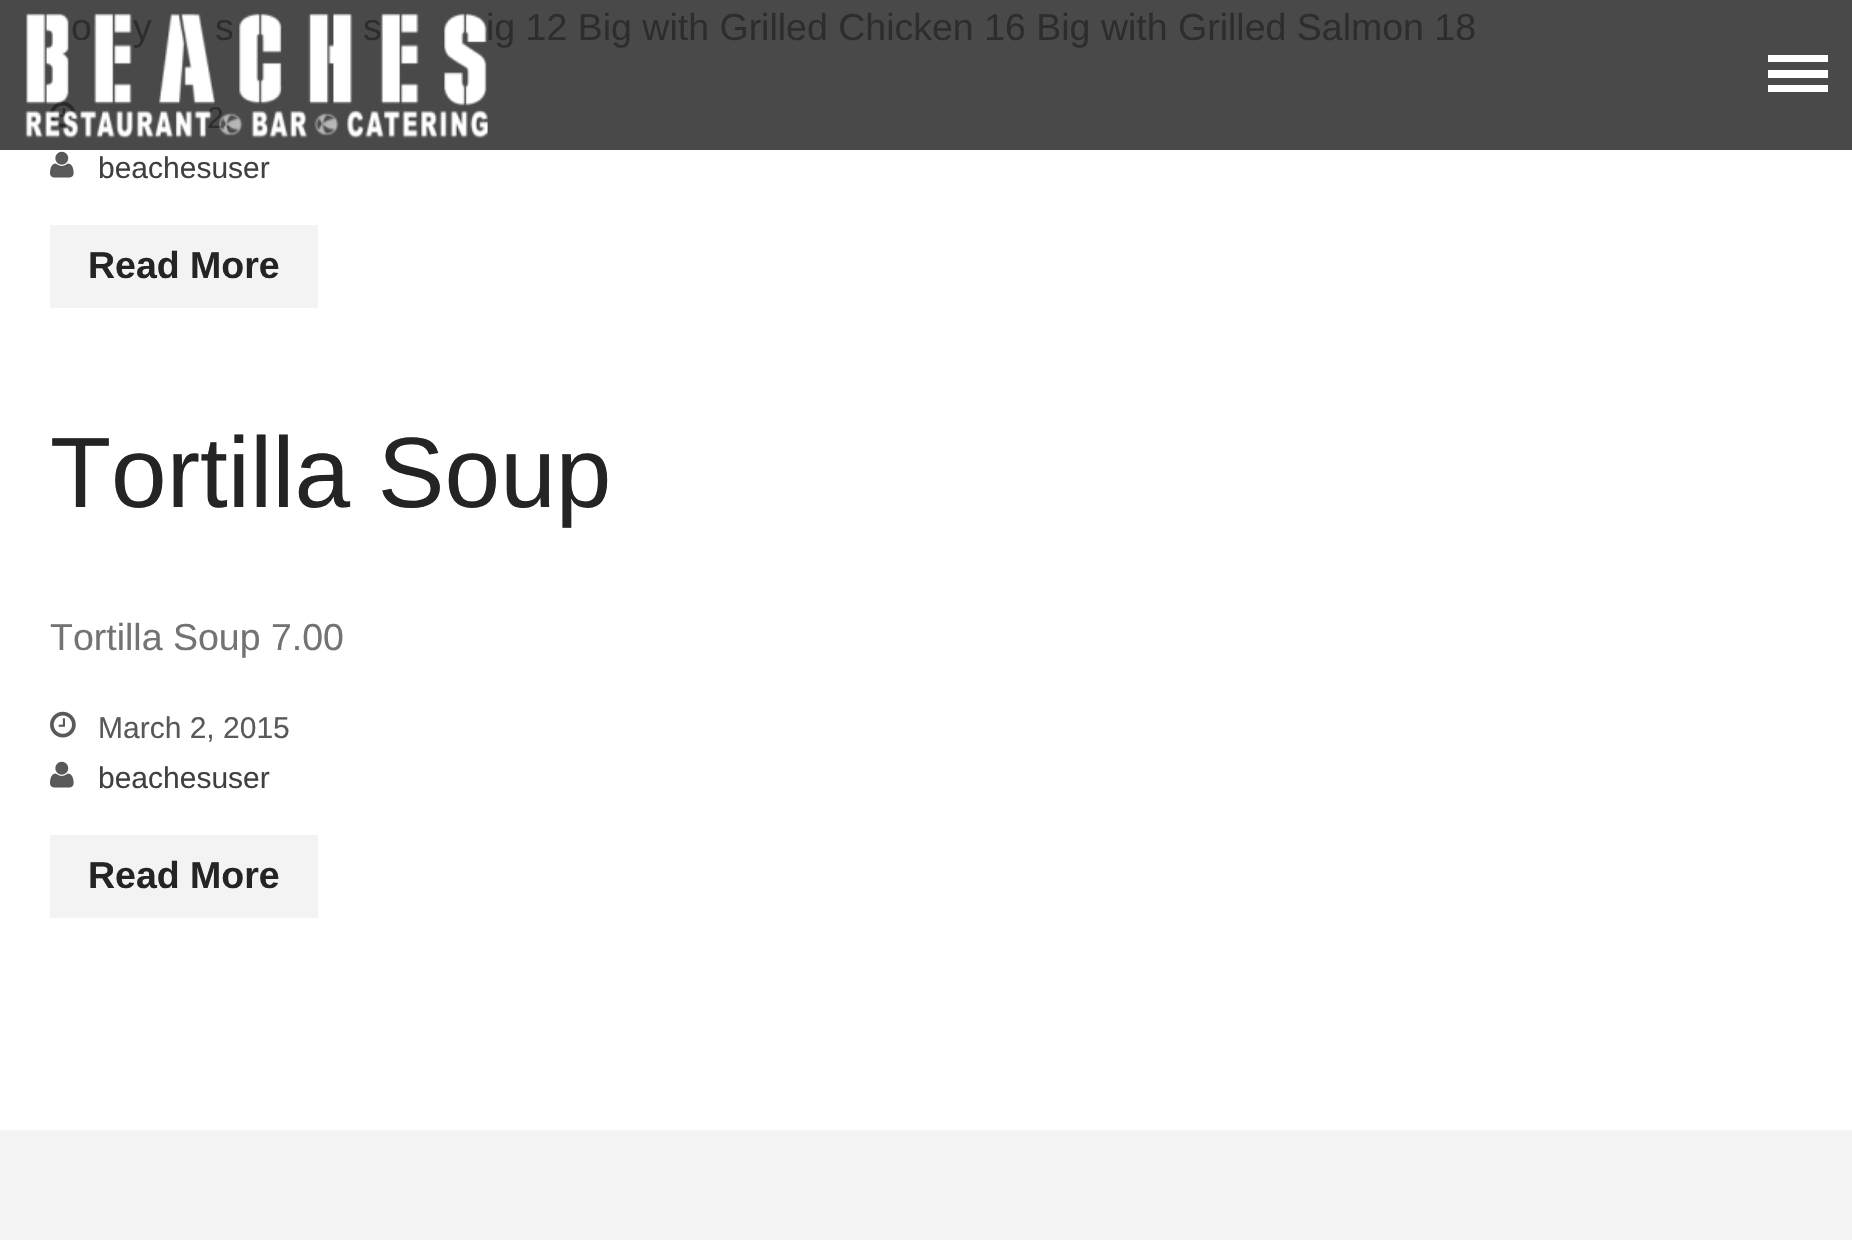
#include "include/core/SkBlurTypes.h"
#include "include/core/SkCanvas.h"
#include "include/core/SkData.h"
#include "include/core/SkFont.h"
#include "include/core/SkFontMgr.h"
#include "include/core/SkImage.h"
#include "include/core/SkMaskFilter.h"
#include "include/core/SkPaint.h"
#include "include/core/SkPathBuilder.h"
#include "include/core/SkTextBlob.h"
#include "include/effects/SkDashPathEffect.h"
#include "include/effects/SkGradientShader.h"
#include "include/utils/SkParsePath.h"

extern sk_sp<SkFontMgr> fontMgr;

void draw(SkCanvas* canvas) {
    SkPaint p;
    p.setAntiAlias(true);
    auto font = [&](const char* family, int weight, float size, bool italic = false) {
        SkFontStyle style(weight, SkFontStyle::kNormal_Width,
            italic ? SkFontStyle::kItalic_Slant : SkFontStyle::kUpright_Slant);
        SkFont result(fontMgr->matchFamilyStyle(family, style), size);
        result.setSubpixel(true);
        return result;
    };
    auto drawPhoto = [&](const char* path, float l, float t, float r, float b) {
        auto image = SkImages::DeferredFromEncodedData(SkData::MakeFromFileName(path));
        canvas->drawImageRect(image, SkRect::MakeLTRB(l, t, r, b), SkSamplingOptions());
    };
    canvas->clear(0xFFFFFFFF);
    p.setColor(0xFF494949);
    canvas->drawRect(SkRect::MakeLTRB(0, 0, 1852, 150), p);
    auto font1 = font("Liberation Sans", 400, 37.5f);
    p.setColor(0xFF2D2D2D);
    {
        const struct { const char* s; float x, y; } items[] = {
            {"o", 71, 40},
            {"y", 133, 40},
            {"s", 215, 40},
            {"s", 363, 40},
            {"ig 12 Big with Grilled Chicken 16 Big with Grilled Salmon 18", 486, 40},
        };
        for (auto [s, x, y] : items) {
            canvas->drawString(s, x, y, font1, p);
        }
    }
    drawPhoto("media/1.png", 50, 101, 76, 128);
    auto font2 = font("Liberation Sans", 400, 30);
    canvas->drawString("2,", 207, 128, font2, p);
    drawPhoto("media/2.png", 50, 151, 74, 178);
    p.setColor(0xFF404040);
    canvas->drawString("beachesuser", 98, 178, font2, p);
    p.setColor(0xFFF3F3F3);
    canvas->drawRect(SkRect::MakeLTRB(50, 225, 318, 308), p);
    auto font3 = font("Liberation Sans", 700, 37.5f);
    p.setColor(0xFF242424);
    canvas->drawString("Read More", 88, 278, font3, p);
    auto font4 = font("Liberation Sans", 400, 100);
    canvas->drawString("Tortilla Soup", 50, 507, font4, p);
    p.setColor(0xFF737373);
    canvas->drawString("Tortilla Soup 7.00", 50, 650, font1, p);
    drawPhoto("media/3.png", 50, 711, 76, 738);
    p.setColor(0xFF595959);
    canvas->drawString("March 2, 2015", 98, 738, font2, p);
    drawPhoto("media/2.png", 50, 761, 74, 788);
    p.setColor(0xFF404040);
    canvas->drawString("beachesuser", 98, 788, font2, p);
    p.setColor(0xFFF3F3F3);
    canvas->drawRect(SkRect::MakeLTRB(50, 835, 318, 918), p);
    p.setColor(0xFF242424);
    canvas->drawString("Read More", 88, 888, font3, p);
    drawPhoto("media/4.png", 25, 13, 488, 138);
    p.setColor(0xFFFFFFFF);
    canvas->drawPath(SkPathBuilder().moveTo(1768, 55).lineTo(1768, 62).lineTo(1828, 62).lineTo(1828, 55).close().moveTo(1768, 70).lineTo(1768, 78).lineTo(1828, 78).lineTo(1828, 70).close().moveTo(1768, 85).lineTo(1768, 92).lineTo(1828, 92).lineTo(1828, 85).close().detach(), p);
    p.setColor(0xFFF3F3F3);
    canvas->drawRect(SkRect::MakeLTRB(0, 1130, 1852, 1240), p);
}
